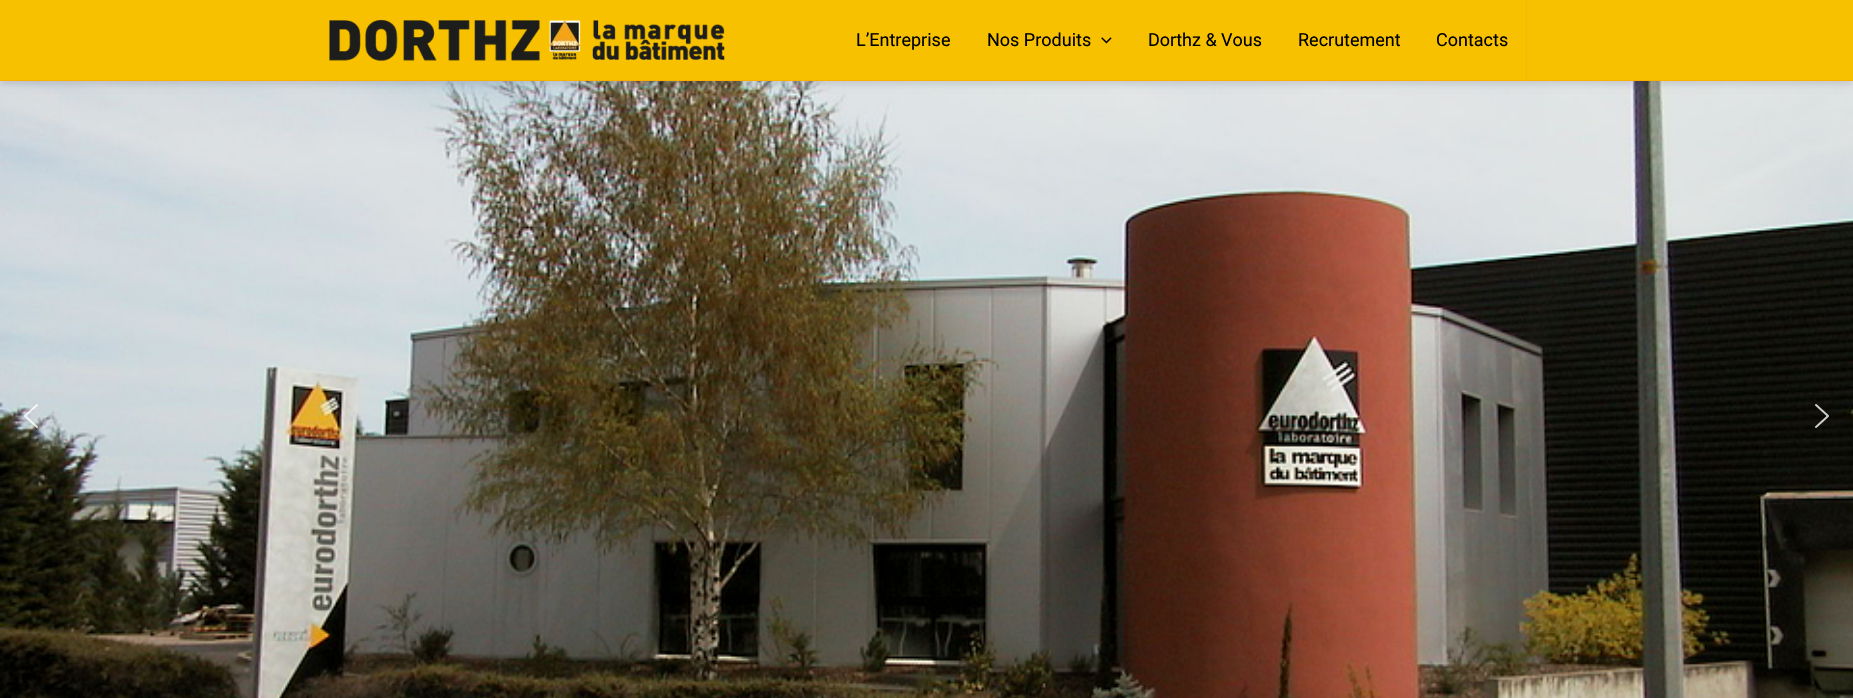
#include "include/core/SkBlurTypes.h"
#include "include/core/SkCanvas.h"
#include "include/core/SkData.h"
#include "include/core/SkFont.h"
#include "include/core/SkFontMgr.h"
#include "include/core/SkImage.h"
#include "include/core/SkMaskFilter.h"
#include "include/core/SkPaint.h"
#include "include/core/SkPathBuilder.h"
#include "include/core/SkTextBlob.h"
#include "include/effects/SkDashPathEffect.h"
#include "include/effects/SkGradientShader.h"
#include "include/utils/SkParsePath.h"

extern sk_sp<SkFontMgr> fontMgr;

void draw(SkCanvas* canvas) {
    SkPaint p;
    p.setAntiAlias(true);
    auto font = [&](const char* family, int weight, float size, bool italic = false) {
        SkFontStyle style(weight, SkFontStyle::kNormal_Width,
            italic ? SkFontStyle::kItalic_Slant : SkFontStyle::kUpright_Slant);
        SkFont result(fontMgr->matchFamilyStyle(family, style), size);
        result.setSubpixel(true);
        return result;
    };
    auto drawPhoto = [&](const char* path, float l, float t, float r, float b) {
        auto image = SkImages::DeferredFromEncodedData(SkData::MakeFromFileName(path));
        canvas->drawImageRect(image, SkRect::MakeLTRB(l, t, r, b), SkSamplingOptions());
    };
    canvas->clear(0xFFFFFFFF);
    drawPhoto("media/3.png", 0, 81, 1853, 698);
    p.setColor(0x1A000000);
    p.setMaskFilter(SkMaskFilter::MakeBlur(kNormal_SkBlurStyle, 3));
    canvas->drawRect(SkRect::MakeLTRB(0, 4, 1853, 85), p);
    p.setMaskFilter(nullptr);
    p.setColor(0xFFF7C100);
    canvas->drawRect(SkRect::MakeLTRB(0, 0, 1853, 80), p);
    p.setColor(0xFFF9B000);
    canvas->drawRect(SkRect::MakeLTRB(0, 80, 1853, 81), p);
    drawPhoto("media/1.png", 329, 19, 725, 62);
    p.setColor(0xFFF6B707);
    canvas->drawRect(SkRect::MakeLTRB(1526, 0, 1527, 80), p);
    auto font1 = font("Roboto", 400, 18);
    p.setColor(0xFF000000);
    canvas->drawString("L’Entreprise", 856, 46, font1, p);
    canvas->drawString("Nos Produits", 987, 46, font1, p);
    drawPhoto("media/2.png", 1101, 37, 1112, 44);
    {
        const struct { const char* s; float x, y; } items[] = {
            {"Dorthz & Vous", 1148, 46},
            {"Recrutement", 1298, 46},
            {"Contacts", 1436, 46},
        };
        for (auto [s, x, y] : items) {
            canvas->drawString(s, x, y, font1, p);
        }
    }
    drawPhoto("media/4.png", 24, 404, 38, 428);
    drawPhoto("media/5.png", 1815, 404, 1829, 428);
}
